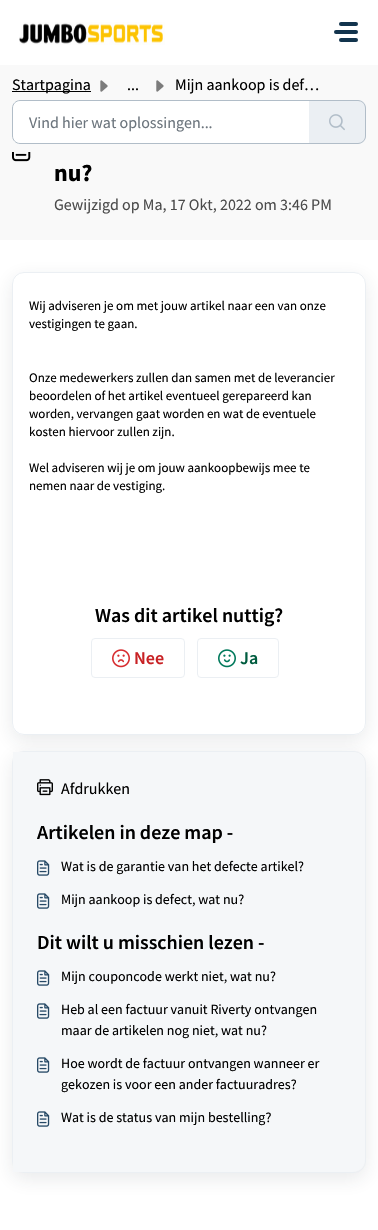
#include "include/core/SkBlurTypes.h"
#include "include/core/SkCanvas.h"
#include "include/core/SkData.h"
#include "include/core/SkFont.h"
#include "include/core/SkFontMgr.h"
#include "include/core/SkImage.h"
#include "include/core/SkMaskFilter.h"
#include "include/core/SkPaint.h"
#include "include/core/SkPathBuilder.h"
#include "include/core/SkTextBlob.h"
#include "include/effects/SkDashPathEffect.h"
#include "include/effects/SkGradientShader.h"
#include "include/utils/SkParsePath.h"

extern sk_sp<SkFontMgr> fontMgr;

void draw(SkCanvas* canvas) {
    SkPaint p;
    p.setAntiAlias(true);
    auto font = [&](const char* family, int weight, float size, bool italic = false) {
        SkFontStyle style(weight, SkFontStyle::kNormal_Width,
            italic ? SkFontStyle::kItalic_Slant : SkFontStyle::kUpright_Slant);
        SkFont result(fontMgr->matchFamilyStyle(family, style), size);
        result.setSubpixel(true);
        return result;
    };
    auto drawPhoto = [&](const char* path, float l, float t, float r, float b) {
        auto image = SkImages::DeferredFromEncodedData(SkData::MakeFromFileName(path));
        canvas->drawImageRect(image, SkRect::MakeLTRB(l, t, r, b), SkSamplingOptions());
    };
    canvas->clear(0xFFFFFFFF);
    drawPhoto("media/1.png", 19, 22, 165, 45);
    p.setColor(0xFF12344D);
    canvas->drawRoundRect(SkRect::MakeLTRB(339, 22, 358, 26), 2, 2, p);
    canvas->drawRoundRect(SkRect::MakeLTRB(334, 30, 358, 34), 2, 2, p);
    canvas->drawRoundRect(SkRect::MakeLTRB(339, 38, 358, 42), 2, 2, p);
    p.setColor(0xFFF9F9F9);
    canvas->drawRect(SkRect::MakeLTRB(0, 65, 378, 240), p);
    p.setColor(0xFF000000);
    canvas->drawRect(SkRect::MakeLTRB(12, 91, 91, 92), p);
    auto font1 = font("Source Sans Pro", 400, 16);
    canvas->drawString("Startpagina", 12, 90, font1, p);
    drawPhoto("media/2.png", 100, 80, 108, 92);
    canvas->drawString("...", 127, 90, font1, p);
    drawPhoto("media/3.png", 156, 80, 164, 92);
    canvas->drawString("Mijn aankoop is def…", 175, 90, font1, p);
    p.setColor(0xFFFFFFFF);
    canvas->drawPath(SkPathBuilder().moveTo(20, 100.5f).lineTo(309.5f, 100.5f).lineTo(309.5f, 143.5f).lineTo(20, 143.5f).cubicTo(16, 143.5f, 12.5f, 140, 12.5f, 136).lineTo(12.5f, 108).cubicTo(12.5f, 104, 16, 100.5f, 20, 100.5f).close().detach(), p);
    p.setStyle(SkPaint::kStroke_Style);
    p.setStrokeWidth(1);
    p.setColor(0xFFB1BDC8);
    canvas->drawPath(SkPathBuilder().moveTo(20, 100.5f).lineTo(309.5f, 100.5f).lineTo(309.5f, 143.5f).lineTo(20, 143.5f).cubicTo(16, 143.5f, 12.5f, 140, 12.5f, 136).lineTo(12.5f, 108).cubicTo(12.5f, 104, 16, 100.5f, 20, 100.5f).close().detach(), p);
    p.setStyle(SkPaint::kFill_Style);
    p.setColor(0xFF6C757D);
    canvas->drawString("Vind hier wat oplossingen...", 29, 128, font1, p);
    p.setColor(0xFFEBEFF3);
    canvas->drawPath(SkPathBuilder().moveTo(309, 100).lineTo(358, 100).cubicTo(362.5f, 100, 366, 103.5f, 366, 108).lineTo(366, 136).cubicTo(366, 140.5f, 362.5f, 144, 358, 144).lineTo(309, 144).close().detach(), p);
    p.setColor(0xFFB1BDC8);
    canvas->drawPath(SkPathBuilder(SkPathFillType::kEvenOdd).moveTo(309, 100).lineTo(358, 100).cubicTo(362, 100, 366, 104, 366, 108).lineTo(366, 136).cubicTo(366, 140, 362, 144, 358, 144).lineTo(309, 144).close().moveTo(309, 101).lineTo(358, 101).cubicTo(362, 101, 365, 104, 365, 108).lineTo(365, 136).cubicTo(365, 140, 362, 143, 358, 143).lineTo(309, 143).close().detach(), p);
    drawPhoto("media/4.png", 329, 114, 345, 131);
    drawPhoto("media/5.png", 12, 152, 31, 162);
    auto font2 = font("Source Sans Pro", 700, 24);
    p.setColor(0xFF000000);
    canvas->drawString("nu?", 54, 181, font2, p);
    p.setColor(0xFF4B4B4B);
    canvas->drawString("Gewijzigd op Ma, 17 Okt, 2022 om 3:46 PM", 54, 210, font1, p);
    canvas->save();
    canvas->clipPath(SkPathBuilder(SkPathFillType::kEvenOdd).moveTo(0, 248).lineTo(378, 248).lineTo(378, 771).lineTo(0, 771).close().moveTo(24, 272).lineTo(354, 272).cubicTo(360.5f, 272, 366, 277.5f, 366, 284).lineTo(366, 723).cubicTo(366, 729.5f, 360.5f, 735, 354, 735).lineTo(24, 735).cubicTo(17.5f, 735, 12, 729.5f, 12, 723).lineTo(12, 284).cubicTo(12, 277.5f, 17.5f, 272, 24, 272).close().detach(), true);
    p.setColor(0x1A27313A);
    p.setMaskFilter(SkMaskFilter::MakeBlur(kNormal_SkBlurStyle, 9.5f));
    canvas->drawRoundRect(SkRect::MakeLTRB(12, 278, 366, 741), 12, 12, p);
    p.setMaskFilter(nullptr);
    canvas->restore();
    p.setStyle(SkPaint::kStroke_Style);
    p.setColor(0xFFEBEFF3);
    canvas->drawRoundRect(SkRect::MakeLTRB(12.5f, 272.5f, 365.5f, 734.5f), 11.5f, 11.5f, p);
    auto font3 = font("Source Sans Pro", 400, 13);
    p.setStyle(SkPaint::kFill_Style);
    p.setColor(0xFF000000);
    {
        const struct { const char* s; float x, y; } items[] = {
            {"Wij adviseren je om met jouw artikel naar een van onze", 29, 310},
            {"vestigingen te gaan.", 29, 328},
            {"Onze medewerkers zullen dan samen met de leverancier", 29, 382},
            {"beoordelen of het artikel eventueel gerepareerd kan", 29, 400},
            {"worden, vervangen gaat worden en wat de eventuele", 29, 418},
            {"kosten hiervoor zullen zijn.", 29, 436},
            {"Wel adviseren wij je om jouw aankoopbewijs mee te", 29, 472},
            {"nemen naar de vestiging.", 29, 490},
        };
        for (auto [s, x, y] : items) {
            canvas->drawString(s, x, y, font3, p);
        }
    }
    auto font4 = font("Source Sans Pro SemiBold", 600, 20);
    canvas->drawString("Was dit artikel nuttig?", 95, 622, font4, p);
    p.setStyle(SkPaint::kStroke_Style);
    p.setColor(0xFFEBEFF3);
    canvas->drawRoundRect(SkRect::MakeLTRB(91.5f, 638.5f, 184.5f, 677.5f), 3.5f, 3.5f, p);
    drawPhoto("media/6.png", 112, 649, 130, 668);
    auto font5 = font("Source Sans Pro SemiBold", 600, 18);
    p.setStyle(SkPaint::kFill_Style);
    p.setColor(0xFFC82124);
    canvas->drawString("Nee", 134, 664, font5, p);
    p.setStyle(SkPaint::kStroke_Style);
    p.setColor(0xFFEBEFF3);
    canvas->drawRoundRect(SkRect::MakeLTRB(197.5f, 638.5f, 278.5f, 677.5f), 3.5f, 3.5f, p);
    drawPhoto("media/7.png", 218, 649, 236, 668);
    p.setStyle(SkPaint::kFill_Style);
    p.setColor(0xFF005C3F);
    canvas->drawString("Ja", 240, 664, font5, p);
    p.setColor(0x1A27313A);
    p.setMaskFilter(SkMaskFilter::MakeBlur(kNormal_SkBlurStyle, 9.5f));
    canvas->drawRoundRect(SkRect::MakeLTRB(12, 757, 366, 1179), 12, 12, p);
    p.setMaskFilter(nullptr);
    p.setStyle(SkPaint::kStroke_Style);
    p.setColor(0xFFEBEFF3);
    canvas->drawRoundRect(SkRect::MakeLTRB(12.5f, 751.5f, 365.5f, 1172.5f), 11.5f, 11.5f, p);
    p.setStyle(SkPaint::kFill_Style);
    p.setColor(0xFFF5F7F9);
    canvas->drawPath(SkPathBuilder().moveTo(13, 752).lineTo(353, 752).cubicTo(359.5f, 752, 365, 757.5f, 365, 764).lineTo(365, 1160).cubicTo(365, 1166.5f, 359.5f, 1172, 353, 1172).lineTo(13, 1172).close().detach(), p);
    drawPhoto("media/8.png", 37, 779, 53, 796);
    p.setColor(0xFF000000);
    canvas->drawString("Afdrukken", 61, 794, font1, p);
    canvas->drawString("Artikelen in deze map -", 37, 839, font4, p);
    drawPhoto("media/9.png", 37, 860, 50, 876);
    auto font6 = font("Source Sans Pro", 400, 14);
    canvas->drawString("Wat is de garantie van het defecte artikel?", 61, 871, font6, p);
    drawPhoto("media/9.png", 37, 893, 50, 909);
    canvas->drawString("Mijn aankoop is defect, wat nu?", 61, 904, font6, p);
    canvas->drawString("Dit wilt u misschien lezen -", 37, 949, font4, p);
    drawPhoto("media/9.png", 37, 970, 50, 986);
    canvas->drawString("Mijn couponcode werkt niet, wat nu?", 61, 981, font6, p);
    drawPhoto("media/9.png", 37, 1003, 50, 1019);
    canvas->drawString("Heb al een factuur vanuit Riverty ontvangen", 61, 1014, font6, p);
    canvas->drawString("maar de artikelen nog niet, wat nu?", 61, 1035, font6, p);
    drawPhoto("media/9.png", 37, 1057, 50, 1073);
    canvas->drawString("Hoe wordt de factuur ontvangen wanneer er", 61, 1068, font6, p);
    canvas->drawString("gekozen is voor een ander factuuradres?", 61, 1089, font6, p);
    drawPhoto("media/9.png", 37, 1111, 50, 1127);
    canvas->drawString("Wat is de status van mijn bestelling?", 61, 1122, font6, p);
}
